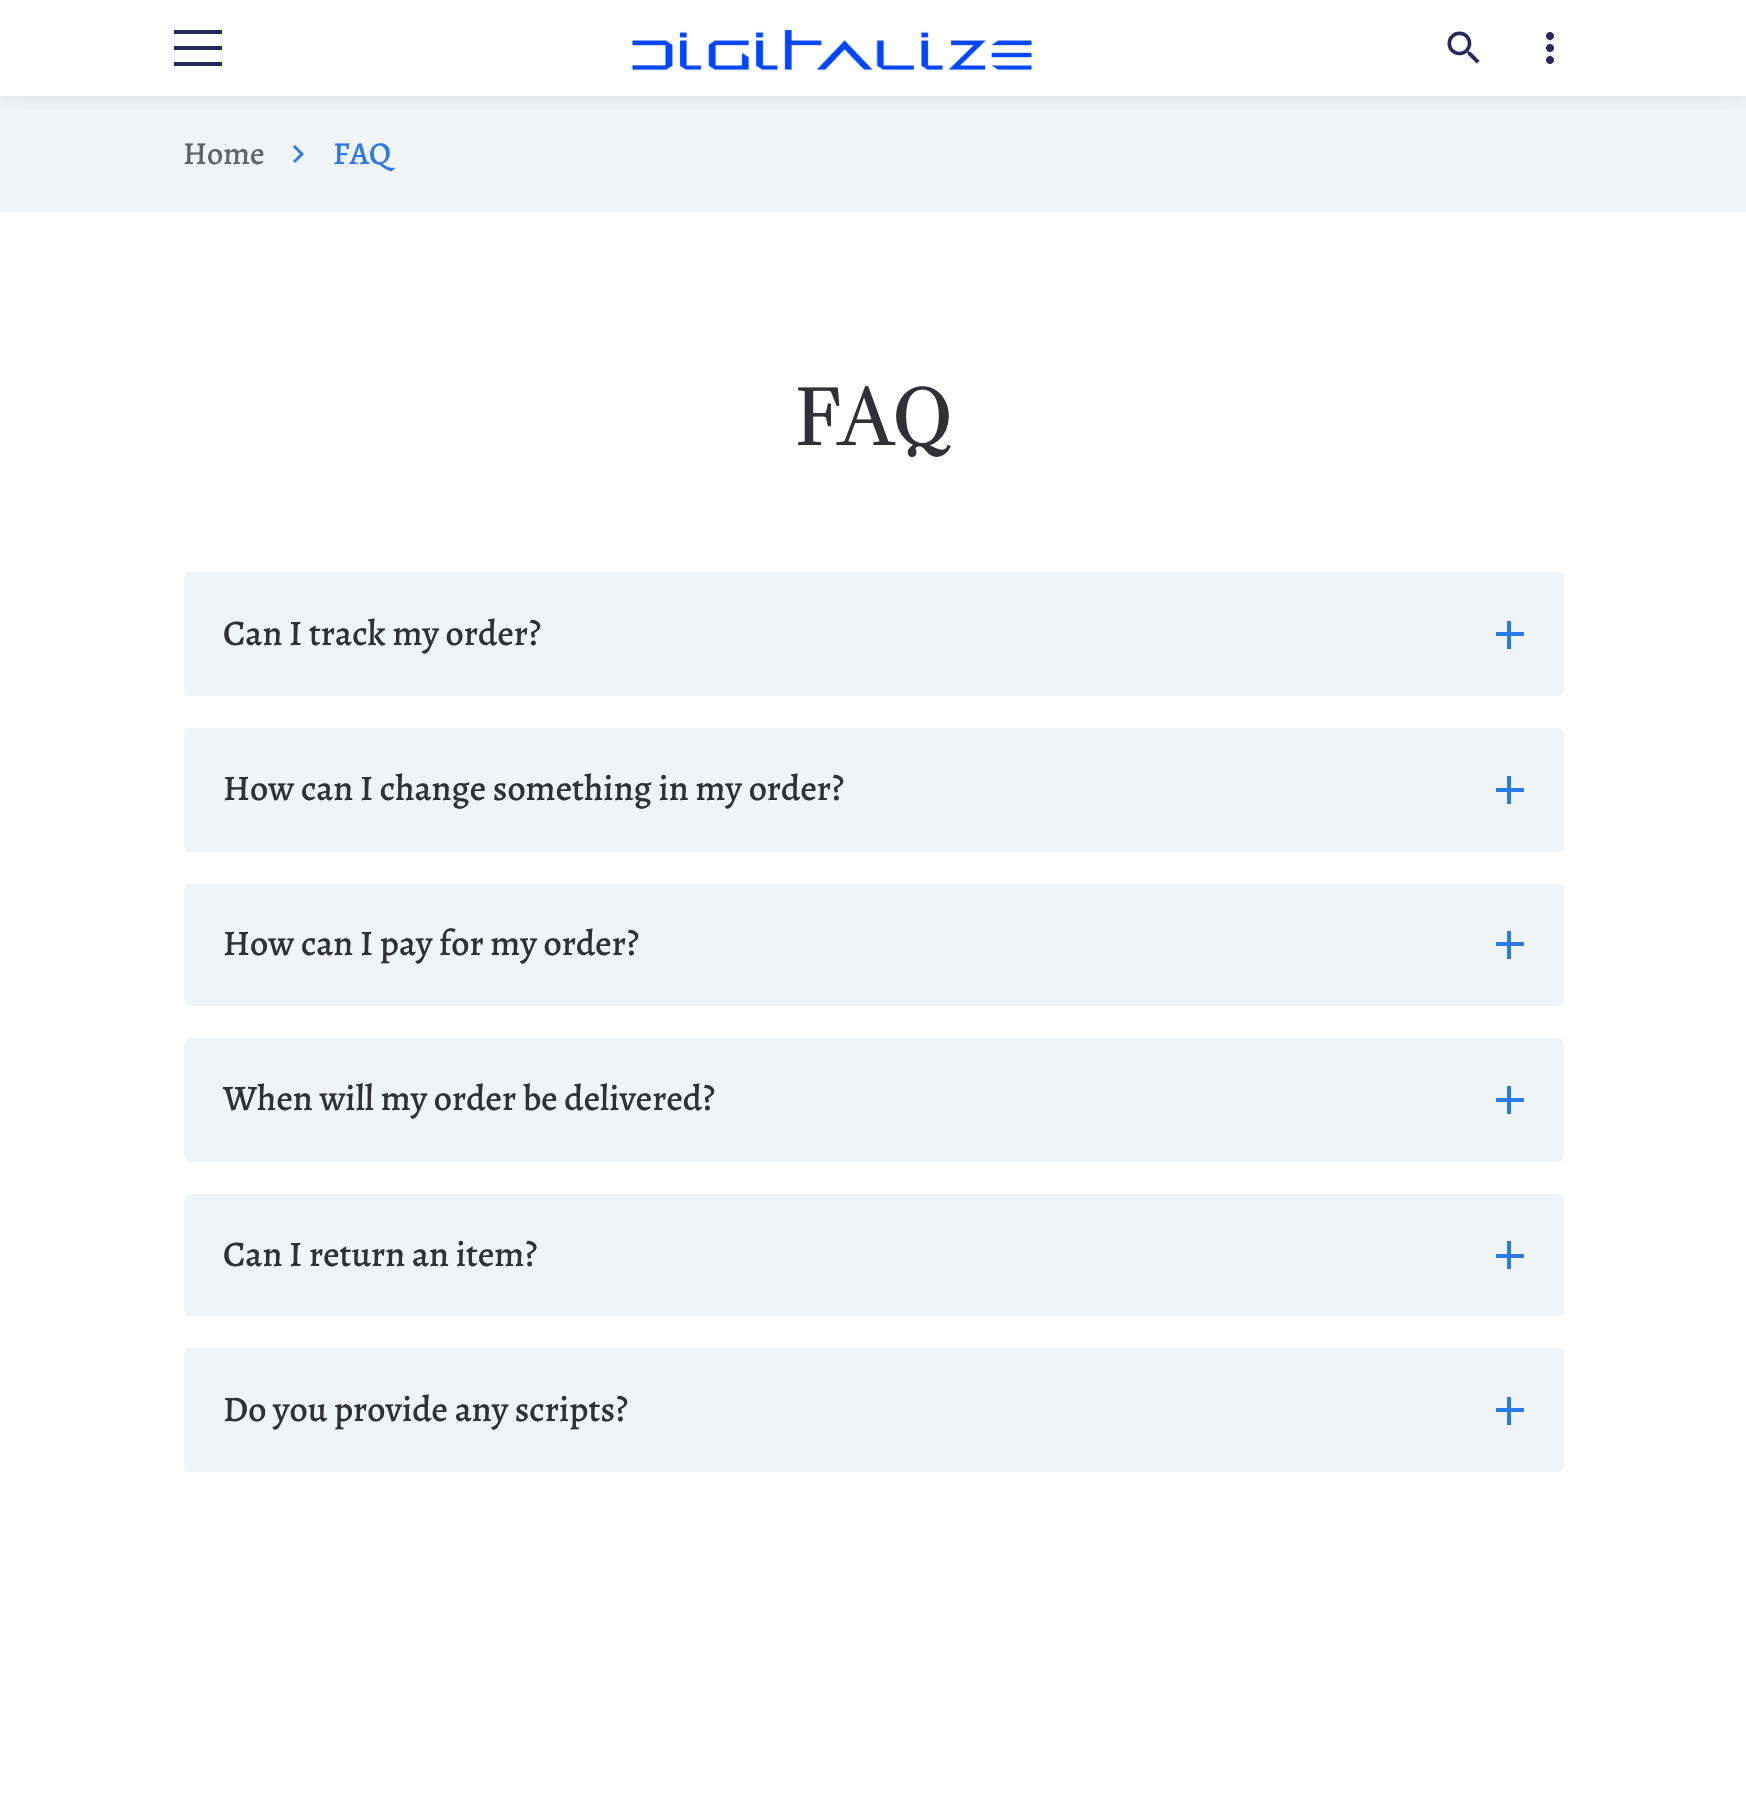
#include "include/core/SkBlurTypes.h"
#include "include/core/SkCanvas.h"
#include "include/core/SkData.h"
#include "include/core/SkFont.h"
#include "include/core/SkFontMgr.h"
#include "include/core/SkImage.h"
#include "include/core/SkMaskFilter.h"
#include "include/core/SkPaint.h"
#include "include/core/SkPathBuilder.h"
#include "include/core/SkTextBlob.h"
#include "include/effects/SkDashPathEffect.h"
#include "include/effects/SkGradientShader.h"
#include "include/utils/SkParsePath.h"

extern sk_sp<SkFontMgr> fontMgr;

void draw(SkCanvas* canvas) {
    SkPaint p;
    p.setAntiAlias(true);
    auto font = [&](const char* family, int weight, float size, bool italic = false) {
        SkFontStyle style(weight, SkFontStyle::kNormal_Width,
            italic ? SkFontStyle::kItalic_Slant : SkFontStyle::kUpright_Slant);
        SkFont result(fontMgr->matchFamilyStyle(family, style), size);
        result.setSubpixel(true);
        return result;
    };
    auto drawPhoto = [&](const char* path, float l, float t, float r, float b) {
        auto image = SkImages::DeferredFromEncodedData(SkData::MakeFromFileName(path));
        canvas->drawImageRect(image, SkRect::MakeLTRB(l, t, r, b), SkSamplingOptions());
    };
    canvas->clear(0xFFFFFFFF);
    p.setColor(0xFFF0F4F8);
    canvas->drawRect(SkRect::MakeLTRB(0, 96, 1746, 212), p);
    canvas->save();
    canvas->clipRect(SkRect::MakeLTRB(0, 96, 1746, 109));
    p.setColor(0x214D525E);
    p.setMaskFilter(SkMaskFilter::MakeBlur(kNormal_SkBlurStyle, 13));
    canvas->drawRect(SkRect::MakeLTRB(0, 0, 1746, 96), p);
    p.setMaskFilter(nullptr);
    canvas->restore();
    {
        const struct { float l, t, r, b; SkColor color; } items[] = {
            {174, 30, 222, 34, 0xFF28285C},
            {174, 46, 222, 50, 0xFF28285C},
            {174, 62, 222, 66, 0xFF28285C},
        };
        for (auto [l, t, r, b, color] : items) {
            p.setColor(color);
            canvas->drawRect(SkRect::MakeLTRB(l, t, r, b), p);
        }
    }
    drawPhoto("media/1.png", 631, 30, 1032, 71);
    drawPhoto("media/2.png", 1447, 31, 1480, 64);
    drawPhoto("media/3.png", 1546, 32, 1554, 64);
    auto font1 = font("Alegreya", 500, 32);
    p.setColor(0xFF63636B);
    canvas->drawString("Home", 183, 164, font1, p);
    p.setColor(0xFF2C7AE7);
    canvas->drawPath(SkPathBuilder().moveTo(295, 145).lineTo(304, 154).lineTo(295, 163).lineTo(293, 161).lineTo(300, 154).lineTo(293, 147).close().detach(), p);
    canvas->drawString("FAQ", 333, 164, font1, p);
    auto font2 = font("Libre Caslon Display", 700, 80);
    p.setColor(0xFF303036);
    canvas->drawString("FAQ", 795, 445, font2, p);
    p.setColor(0xFFF0F4F8);
    canvas->drawRoundRect(SkRect::MakeLTRB(184, 572, 1564, 696), 6, 6, p);
    auto font3 = font("Alegreya", 500, 36);
    p.setColor(0xFF303036);
    canvas->drawString("Can I track my order?", 223, 645, font3, p);
    p.setColor(0xFF2C7AE7);
    canvas->drawRect(SkRect::MakeLTRB(1507, 621, 1511, 649), p);
    canvas->drawRect(SkRect::MakeLTRB(1496, 632, 1524, 636), p);
    p.setColor(0xFFF0F4F8);
    canvas->drawRoundRect(SkRect::MakeLTRB(184, 728, 1564, 852), 6, 6, p);
    p.setColor(0xFF303036);
    canvas->drawString("How can I change something in my order?", 223, 800, font3, p);
    p.setColor(0xFF2C7AE7);
    canvas->drawRect(SkRect::MakeLTRB(1507, 776, 1511, 804), p);
    canvas->drawRect(SkRect::MakeLTRB(1496, 788, 1524, 792), p);
    p.setColor(0xFFF0F4F8);
    canvas->drawRoundRect(SkRect::MakeLTRB(184, 884, 1564, 1006), 6, 6, p);
    p.setColor(0xFF303036);
    canvas->drawString("How can I pay for my order?", 223, 955, font3, p);
    p.setColor(0xFF2C7AE7);
    canvas->drawRect(SkRect::MakeLTRB(1507, 931, 1511, 959), p);
    canvas->drawRect(SkRect::MakeLTRB(1496, 942, 1524, 946), p);
    p.setColor(0xFFF0F4F8);
    canvas->drawRoundRect(SkRect::MakeLTRB(184, 1038, 1564, 1162), 6, 6, p);
    p.setColor(0xFF303036);
    canvas->drawString("When will my order be delivered?", 223, 1110, font3, p);
    p.setColor(0xFF2C7AE7);
    canvas->drawRect(SkRect::MakeLTRB(1507, 1086, 1511, 1114), p);
    canvas->drawRect(SkRect::MakeLTRB(1496, 1098, 1524, 1102), p);
    p.setColor(0xFFF0F4F8);
    canvas->drawRoundRect(SkRect::MakeLTRB(184, 1194, 1564, 1316), 6, 6, p);
    p.setColor(0xFF303036);
    canvas->drawString("Can I return an item?", 223, 1266, font3, p);
    p.setColor(0xFF2C7AE7);
    canvas->drawRect(SkRect::MakeLTRB(1507, 1241, 1511, 1269), p);
    canvas->drawRect(SkRect::MakeLTRB(1496, 1254, 1524, 1258), p);
    p.setColor(0xFFF0F4F8);
    canvas->drawRoundRect(SkRect::MakeLTRB(184, 1348, 1564, 1472), 6, 6, p);
    p.setColor(0xFF303036);
    canvas->drawString("Do you provide any scripts?", 223, 1421, font3, p);
    p.setColor(0xFF2C7AE7);
    canvas->drawRect(SkRect::MakeLTRB(1507, 1397, 1511, 1425), p);
    canvas->drawRect(SkRect::MakeLTRB(1496, 1408, 1524, 1412), p);
}
